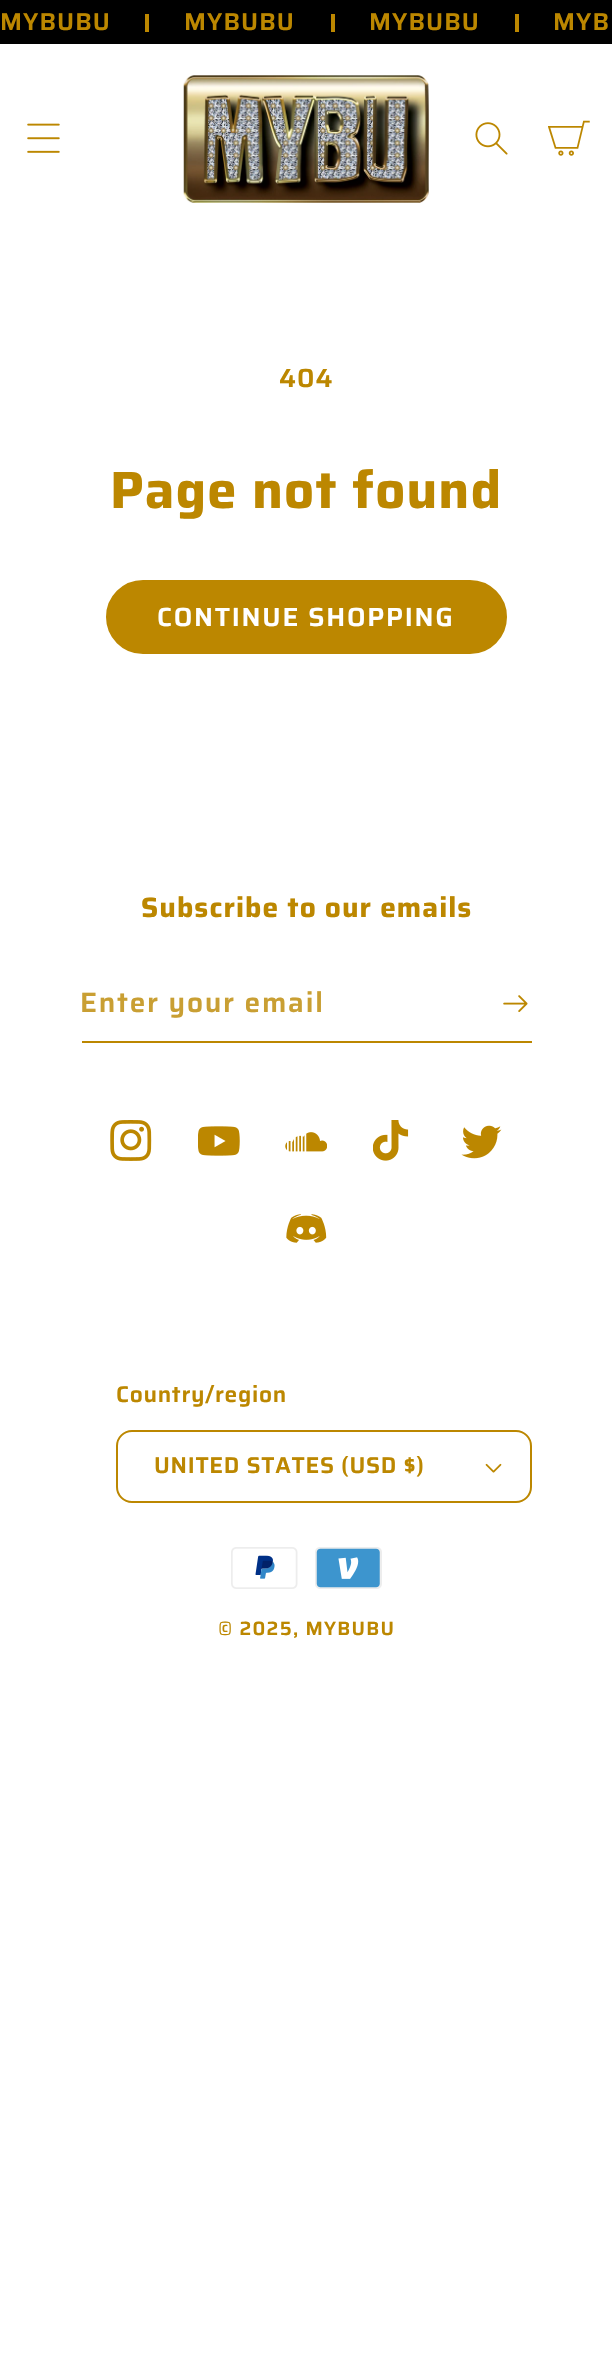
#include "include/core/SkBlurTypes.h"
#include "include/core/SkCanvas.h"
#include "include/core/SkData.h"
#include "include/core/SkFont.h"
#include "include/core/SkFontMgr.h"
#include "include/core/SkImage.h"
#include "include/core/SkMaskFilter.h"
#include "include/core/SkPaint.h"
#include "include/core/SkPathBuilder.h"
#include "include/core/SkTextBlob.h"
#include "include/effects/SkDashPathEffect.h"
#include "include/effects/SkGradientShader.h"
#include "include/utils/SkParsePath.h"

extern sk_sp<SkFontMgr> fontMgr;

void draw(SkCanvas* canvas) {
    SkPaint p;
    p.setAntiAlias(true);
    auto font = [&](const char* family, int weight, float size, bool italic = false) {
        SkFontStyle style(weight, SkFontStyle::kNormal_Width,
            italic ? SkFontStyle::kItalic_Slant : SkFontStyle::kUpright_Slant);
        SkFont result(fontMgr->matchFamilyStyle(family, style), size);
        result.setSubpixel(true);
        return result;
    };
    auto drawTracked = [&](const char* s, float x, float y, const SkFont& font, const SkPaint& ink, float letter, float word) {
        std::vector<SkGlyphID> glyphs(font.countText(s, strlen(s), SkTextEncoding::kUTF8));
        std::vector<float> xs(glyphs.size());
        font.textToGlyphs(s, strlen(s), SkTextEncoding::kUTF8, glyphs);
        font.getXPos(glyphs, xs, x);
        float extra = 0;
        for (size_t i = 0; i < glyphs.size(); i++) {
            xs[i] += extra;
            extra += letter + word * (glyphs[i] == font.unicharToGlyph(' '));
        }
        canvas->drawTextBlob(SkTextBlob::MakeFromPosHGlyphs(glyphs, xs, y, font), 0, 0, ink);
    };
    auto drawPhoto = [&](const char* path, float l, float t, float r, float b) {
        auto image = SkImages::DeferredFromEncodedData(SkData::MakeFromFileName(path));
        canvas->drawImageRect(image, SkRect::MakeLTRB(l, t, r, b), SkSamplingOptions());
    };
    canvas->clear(0xFFFFFFFF);
    p.setColor(0xFF000000);
    canvas->drawRect(SkRect::MakeLTRB(0, 0, 612, 44), p);
    auto font1 = font("Saira", 600, 24.5f);
    p.setColor(0xFFBC8700);
    drawTracked("MYBUBU", 0, 30, font1, p, 1.05f, 0);
    canvas->drawRect(SkRect::MakeLTRB(145, 14, 149, 32), p);
    drawTracked("MYBUBU", 184, 30, font1, p, 1.05f, 0);
    canvas->drawRect(SkRect::MakeLTRB(331, 14, 335, 32), p);
    drawTracked("MYBUBU", 369, 30, font1, p, 1.05f, 0);
    canvas->drawRect(SkRect::MakeLTRB(515, 14, 519, 32), p);
    drawTracked("MYB", 553, 30, font1, p, 1.05f, 0);
    drawPhoto("media/1.png", 27, 123, 60, 153);
    drawPhoto("media/2.png", 183, 75, 429, 203);
    drawPhoto("media/3.png", 475, 122, 508, 155);
    drawPhoto("media/4.png", 548, 120, 590, 156);
    auto font2 = font("Saira", 600, 26.25f);
    drawTracked("404", 279, 387, font2, p, 1.05f, 0);
    auto font3 = font("Saira", 700, 52.5f);
    drawTracked("Page not found", 110, 508, font3, p, 1.05f, 0);
    canvas->drawRoundRect(SkRect::MakeLTRB(104, 578, 509, 656), 39, 39, p);
    p.setStyle(SkPaint::kStroke_Style);
    p.setStrokeWidth(4);
    p.setColor(0xFFFFFFFF);
    canvas->drawRoundRect(SkRect::MakeLTRB(104, 578, 509, 656), 39, 39, p);
    p.setStyle(SkPaint::kFill_Style);
    drawTracked("CONTINUE SHOPPING", 157, 626, font2, p, 1.75f, 0);
    auto font4 = font("Saira", 700, 28);
    p.setColor(0xFFBC8700);
    drawTracked("Subscribe to our emails", 141, 917, font4, p, 1.05f, 0);
    auto font5 = font("Saira", 600, 28);
    p.setColor(0xFFC99F33);
    drawTracked("Enter your email", 80, 1012, font5, p, 1.75f, 0);
    drawPhoto("media/5.png", 503, 995, 528, 1012);
    p.setColor(0xFFBC8700);
    canvas->drawRect(SkRect::MakeLTRB(82, 1041, 532, 1043), p);
    drawPhoto("media/6.png", 110, 1120, 152, 1161);
    drawPhoto("media/7.png", 198, 1126, 240, 1156);
    drawPhoto("media/8.png", 285, 1132, 327, 1152);
    drawPhoto("media/9.png", 373, 1120, 409, 1161);
    drawPhoto("media/10.png", 461, 1125, 502, 1159);
    drawPhoto("media/11.png", 286, 1214, 327, 1243);
    auto font6 = font("Saira", 600, 22.75f);
    drawTracked("Country/region", 116, 1402, font6, p, 0.7f, 0);
    p.setStyle(SkPaint::kStroke_Style);
    p.setStrokeWidth(2);
    canvas->drawRoundRect(SkRect::MakeLTRB(117, 1431, 531, 1502), 15, 15, p);
    p.setStyle(SkPaint::kFill_Style);
    drawTracked("UNITED STATES (USD $)", 154, 1473, font6, p, 0.7f, 0);
    drawPhoto("media/12.png", 485, 1463, 502, 1473);
    drawPhoto("media/13.png", 231, 1547, 298, 1589);
    drawPhoto("media/14.png", 315, 1547, 382, 1589);
    auto font7 = font("Saira", 600, 19.25f);
    drawTracked("© 2025, MYBUBU", 218, 1635, font7, p, 1.25f, 0);
}
